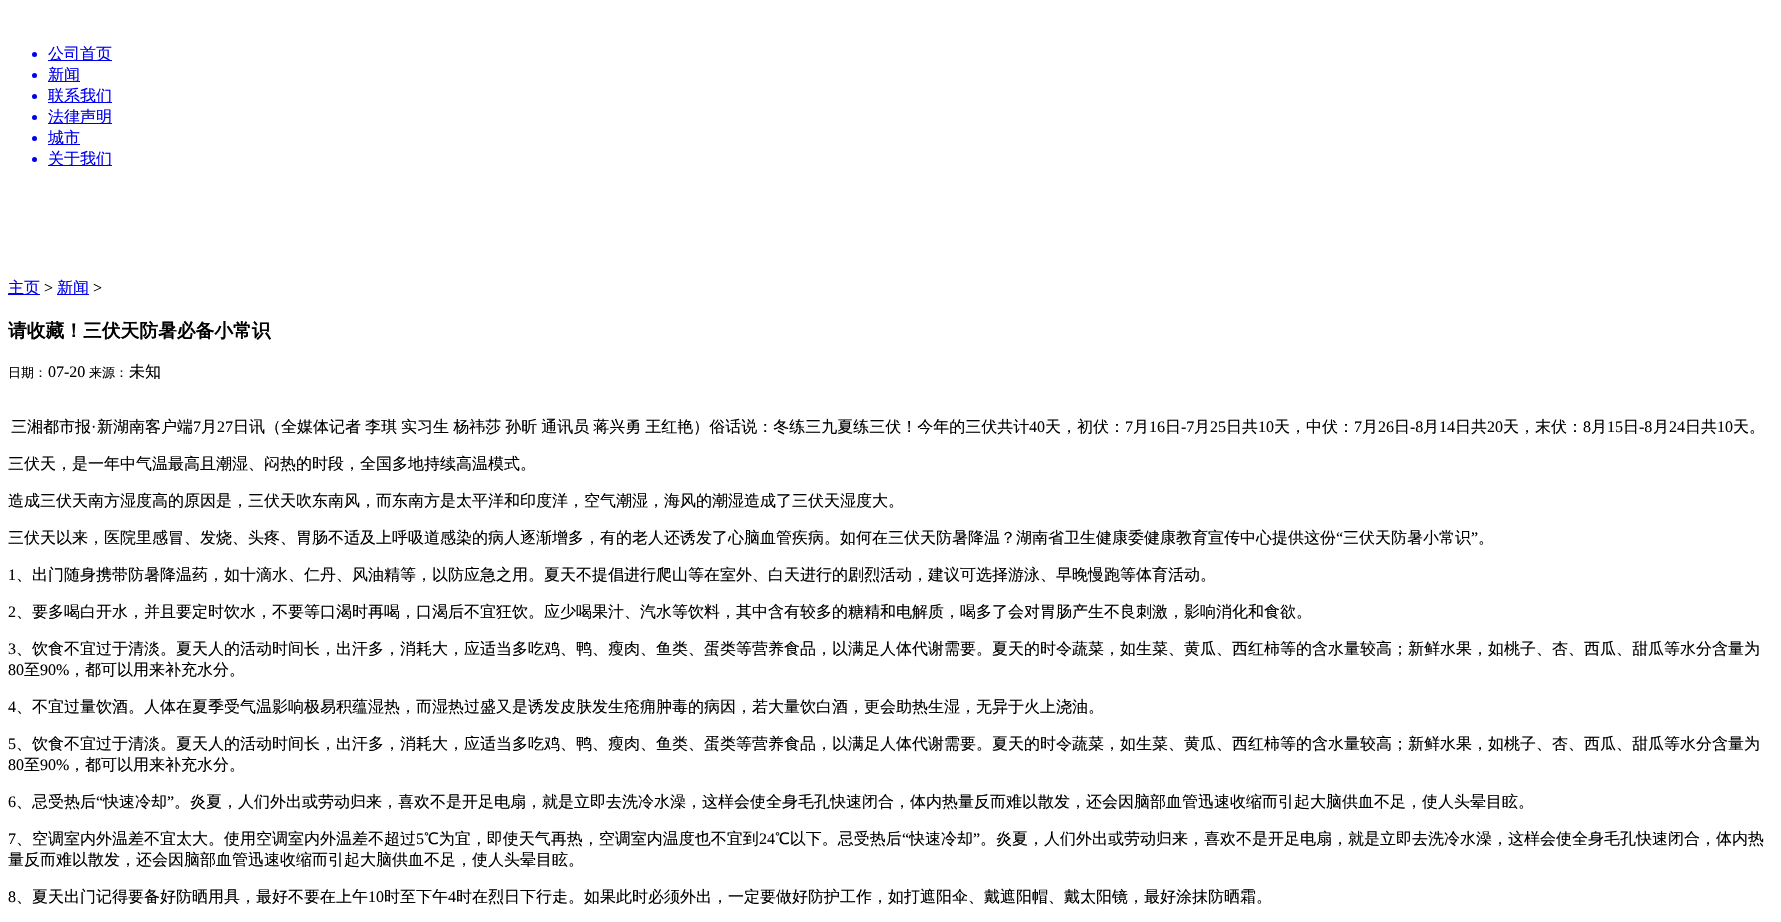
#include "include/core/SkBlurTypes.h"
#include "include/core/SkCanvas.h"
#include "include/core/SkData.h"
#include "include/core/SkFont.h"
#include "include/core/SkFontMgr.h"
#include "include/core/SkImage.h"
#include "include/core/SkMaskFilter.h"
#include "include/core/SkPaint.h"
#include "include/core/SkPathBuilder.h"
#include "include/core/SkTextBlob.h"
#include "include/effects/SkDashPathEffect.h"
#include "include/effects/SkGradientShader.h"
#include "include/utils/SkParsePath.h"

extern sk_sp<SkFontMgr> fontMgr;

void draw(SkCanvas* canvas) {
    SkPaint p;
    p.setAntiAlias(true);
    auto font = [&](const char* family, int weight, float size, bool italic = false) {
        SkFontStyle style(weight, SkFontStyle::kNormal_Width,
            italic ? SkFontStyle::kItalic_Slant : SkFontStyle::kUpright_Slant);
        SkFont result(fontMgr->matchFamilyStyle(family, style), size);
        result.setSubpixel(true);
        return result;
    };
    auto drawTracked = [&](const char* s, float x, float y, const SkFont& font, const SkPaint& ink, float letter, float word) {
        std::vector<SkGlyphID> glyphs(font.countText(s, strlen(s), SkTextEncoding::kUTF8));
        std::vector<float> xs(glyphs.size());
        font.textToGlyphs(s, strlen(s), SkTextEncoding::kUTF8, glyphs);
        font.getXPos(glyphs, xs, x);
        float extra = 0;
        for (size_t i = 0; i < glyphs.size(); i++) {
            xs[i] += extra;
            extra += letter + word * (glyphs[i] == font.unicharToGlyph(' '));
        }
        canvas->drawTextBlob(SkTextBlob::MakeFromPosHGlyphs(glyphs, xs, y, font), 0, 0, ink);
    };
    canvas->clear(0xFFFFFFFF);
    p.setColor(0xFF0000EE);
    canvas->drawCircle(34.5f, 54.5f, 2.5f, p);
    canvas->drawRect(SkRect::MakeLTRB(48, 60, 112, 61), p);
    auto font1 = font("WenQuanYi Zen Hei", 500, 16);
    canvas->drawString("公司首页", 48, 59, font1, p);
    canvas->drawCircle(34.5f, 75.5f, 2.5f, p);
    canvas->drawRect(SkRect::MakeLTRB(48, 81, 80, 82), p);
    canvas->drawString("新闻", 48, 80, font1, p);
    canvas->drawCircle(34.5f, 96.5f, 2.5f, p);
    canvas->drawRect(SkRect::MakeLTRB(48, 102, 112, 103), p);
    canvas->drawString("联系我们", 48, 101, font1, p);
    canvas->drawCircle(34.5f, 117.5f, 2.5f, p);
    canvas->drawRect(SkRect::MakeLTRB(48, 123, 112, 124), p);
    canvas->drawString("法律声明", 48, 122, font1, p);
    canvas->drawCircle(34.5f, 138.5f, 2.5f, p);
    canvas->drawRect(SkRect::MakeLTRB(48, 144, 80, 145), p);
    canvas->drawString("城市", 48, 143, font1, p);
    canvas->drawCircle(34.5f, 159.5f, 2.5f, p);
    canvas->drawRect(SkRect::MakeLTRB(48, 165, 112, 166), p);
    canvas->drawString("关于我们", 48, 164, font1, p);
    canvas->drawRect(SkRect::MakeLTRB(8, 294, 40, 295), p);
    canvas->drawString("主页", 8, 293, font1, p);
    auto font2 = font("Liberation Serif", 400, 16);
    p.setColor(0xFF000000);
    canvas->drawString(">", 44, 293, font2, p);
    p.setColor(0xFF0000EE);
    canvas->drawRect(SkRect::MakeLTRB(57, 294, 89, 295), p);
    canvas->drawString("新闻", 57, 293, font1, p);
    p.setColor(0xFF000000);
    canvas->drawString(">", 93, 293, font2, p);
    auto font3 = font("WenQuanYi Zen Hei", 700, 18.75f);
    canvas->drawString("请收藏！三伏天防暑必备小常识", 8, 337, font3, p);
    auto font4 = font("WenQuanYi Zen Hei", 500, 13);
    canvas->drawString("日期：", 8, 377, font4, p);
    canvas->drawString("07-20", 48, 377, font2, p);
    canvas->drawString("来源：", 89, 377, font4, p);
    canvas->drawString("未知", 129, 377, font1, p);
    canvas->drawString("三湘都市报", 11, 432, font1, p);
    canvas->drawString("·", 91, 432, font2, p);
    canvas->drawString("新湖南客户端", 97, 432, font1, p);
    canvas->drawString("7", 193, 432, font2, p);
    canvas->drawString("月", 201, 432, font1, p);
    canvas->drawString("27", 217, 432, font2, p);
    drawTracked("日讯（全媒体记者 李琪 实习生 杨祎莎 孙昕 通讯员 蒋兴勇 王红艳）俗话说：冬练三九夏练三伏！今年的三伏共计", 233, 432, font1, p, 0, -0.75f);
    canvas->drawString("40", 1029, 432, font2, p);
    canvas->drawString("天，初伏：", 1045, 432, font1, p);
    canvas->drawString("7", 1125, 432, font2, p);
    canvas->drawString("月", 1133, 432, font1, p);
    canvas->drawString("16", 1149, 432, font2, p);
    canvas->drawString("日", 1165, 432, font1, p);
    canvas->drawString("-7", 1181, 432, font2, p);
    canvas->drawString("月", 1194, 432, font1, p);
    canvas->drawString("25", 1210, 432, font2, p);
    canvas->drawString("日共", 1226, 432, font1, p);
    canvas->drawString("10", 1258, 432, font2, p);
    canvas->drawString("天，中伏：", 1274, 432, font1, p);
    canvas->drawString("7", 1354, 432, font2, p);
    canvas->drawString("月", 1362, 432, font1, p);
    canvas->drawString("26", 1378, 432, font2, p);
    canvas->drawString("日", 1394, 432, font1, p);
    canvas->drawString("-8", 1410, 432, font2, p);
    canvas->drawString("月", 1423, 432, font1, p);
    canvas->drawString("14", 1439, 432, font2, p);
    canvas->drawString("日共", 1455, 432, font1, p);
    canvas->drawString("20", 1487, 432, font2, p);
    canvas->drawString("天，末伏：", 1503, 432, font1, p);
    canvas->drawString("8", 1583, 432, font2, p);
    canvas->drawString("月", 1591, 432, font1, p);
    canvas->drawString("15", 1607, 432, font2, p);
    canvas->drawString("日", 1623, 432, font1, p);
    canvas->drawString("-8", 1639, 432, font2, p);
    canvas->drawString("月", 1653, 432, font1, p);
    canvas->drawString("24", 1669, 432, font2, p);
    canvas->drawString("日共", 1685, 432, font1, p);
    canvas->drawString("10", 1717, 432, font2, p);
    {
        const struct { const char* s; float x, y; } items[] = {
            {"天。", 1733, 432},
            {"三伏天，是一年中气温最高且潮湿、闷热的时段，全国多地持续高温模式。", 8, 469},
            {"造成三伏天南方湿度高的原因是，三伏天吹东南风，而东南方是太平洋和印度洋，空气潮湿，海风的潮湿造成了三伏天湿度大。", 8, 506},
            {"三伏天以来，医院里感冒、发烧、头疼、胃肠不适及上呼吸道感染的病人逐渐增多，有的老人还诱发了心脑血管疾病。如何在三伏天防暑降温？湖南省卫生健康委健康教育宣传中心提供这份", 8, 543},
        };
        for (auto [s, x, y] : items) {
            canvas->drawString(s, x, y, font1, p);
        }
    }
    canvas->drawString("“", 1336, 543, font2, p);
    canvas->drawString("三伏天防暑小常识", 1343, 543, font1, p);
    canvas->drawString("”", 1471, 543, font2, p);
    canvas->drawString("。", 1478, 543, font1, p);
    canvas->drawString("1", 8, 580, font2, p);
    canvas->drawString("、出门随身携带防暑降温药，如十滴水、仁丹、风油精等，以防应急之用。夏天不提倡进行爬山等在室外、白天进行的剧烈活动，建议可选择游泳、早晚慢跑等体育活动。", 16, 580, font1, p);
    canvas->drawString("2", 8, 617, font2, p);
    canvas->drawString("、要多喝白开水，并且要定时饮水，不要等口渴时再喝，口渴后不宜狂饮。应少喝果汁、汽水等饮料，其中含有较多的糖精和电解质，喝多了会对胃肠产生不良刺激，影响消化和食欲。", 16, 617, font1, p);
    canvas->drawString("3", 8, 654, font2, p);
    canvas->drawString("、饮食不宜过于清淡。夏天人的活动时间长，出汗多，消耗大，应适当多吃鸡、鸭、瘦肉、鱼类、蛋类等营养食品，以满足人体代谢需要。夏天的时令蔬菜，如生菜、黄瓜、西红柿等的含水量较高；新鲜水果，如桃子、杏、西瓜、甜瓜等水分含量为", 16, 654, font1, p);
    canvas->drawString("80", 8, 675, font2, p);
    canvas->drawString("至", 24, 675, font1, p);
    canvas->drawString("90%", 40, 675, font2, p);
    canvas->drawString("，都可以用来补充水分。", 69, 675, font1, p);
    canvas->drawString("4", 8, 712, font2, p);
    canvas->drawString("、不宜过量饮酒。人体在夏季受气温影响极易积蕴湿热，而湿热过盛又是诱发皮肤发生疮痈肿毒的病因，若大量饮白酒，更会助热生湿，无异于火上浇油。", 16, 712, font1, p);
    canvas->drawString("5", 8, 749, font2, p);
    canvas->drawString("、饮食不宜过于清淡。夏天人的活动时间长，出汗多，消耗大，应适当多吃鸡、鸭、瘦肉、鱼类、蛋类等营养食品，以满足人体代谢需要。夏天的时令蔬菜，如生菜、黄瓜、西红柿等的含水量较高；新鲜水果，如桃子、杏、西瓜、甜瓜等水分含量为", 16, 749, font1, p);
    canvas->drawString("80", 8, 770, font2, p);
    canvas->drawString("至", 24, 770, font1, p);
    canvas->drawString("90%", 40, 770, font2, p);
    canvas->drawString("，都可以用来补充水分。", 69, 770, font1, p);
    canvas->drawString("6", 8, 807, font2, p);
    canvas->drawString("、忌受热后", 16, 807, font1, p);
    canvas->drawString("“", 96, 807, font2, p);
    canvas->drawString("快速冷却", 103, 807, font1, p);
    canvas->drawString("”", 167, 807, font2, p);
    canvas->drawString("。炎夏，人们外出或劳动归来，喜欢不是开足电扇，就是立即去洗冷水澡，这样会使全身毛孔快速闭合，体内热量反而难以散发，还会因脑部血管迅速收缩而引起大脑供血不足，使人头晕目眩。", 174, 807, font1, p);
    canvas->drawString("7", 8, 844, font2, p);
    canvas->drawString("、空调室内外温差不宜太大。使用空调室内外温差不超过", 16, 844, font1, p);
    canvas->drawString("5", 416, 844, font2, p);
    canvas->drawString("℃为宜，即使天气再热，空调室内温度也不宜到", 424, 844, font1, p);
    canvas->drawString("24", 759, 844, font2, p);
    canvas->drawString("℃以下。忌受热后", 775, 844, font1, p);
    canvas->drawString("“", 902, 844, font2, p);
    canvas->drawString("快速冷却", 909, 844, font1, p);
    canvas->drawString("”", 973, 844, font2, p);
    canvas->drawString("。炎夏，人们外出或劳动归来，喜欢不是开足电扇，就是立即去洗冷水澡，这样会使全身毛孔快速闭合，体内热", 980, 844, font1, p);
    canvas->drawString("量反而难以散发，还会因脑部血管迅速收缩而引起大脑供血不足，使人头晕目眩。", 8, 865, font1, p);
    canvas->drawString("8", 8, 902, font2, p);
    canvas->drawString("、夏天出门记得要备好防晒用具，最好不要在上午", 16, 902, font1, p);
    canvas->drawString("10", 368, 902, font2, p);
    canvas->drawString("时至下午", 384, 902, font1, p);
    canvas->drawString("4", 448, 902, font2, p);
    canvas->drawString("时在烈日下行走。如果此时必须外出，一定要做好防护工作，如打遮阳伞、戴遮阳帽、戴太阳镜，最好涂抹防晒霜。", 456, 902, font1, p);
}
